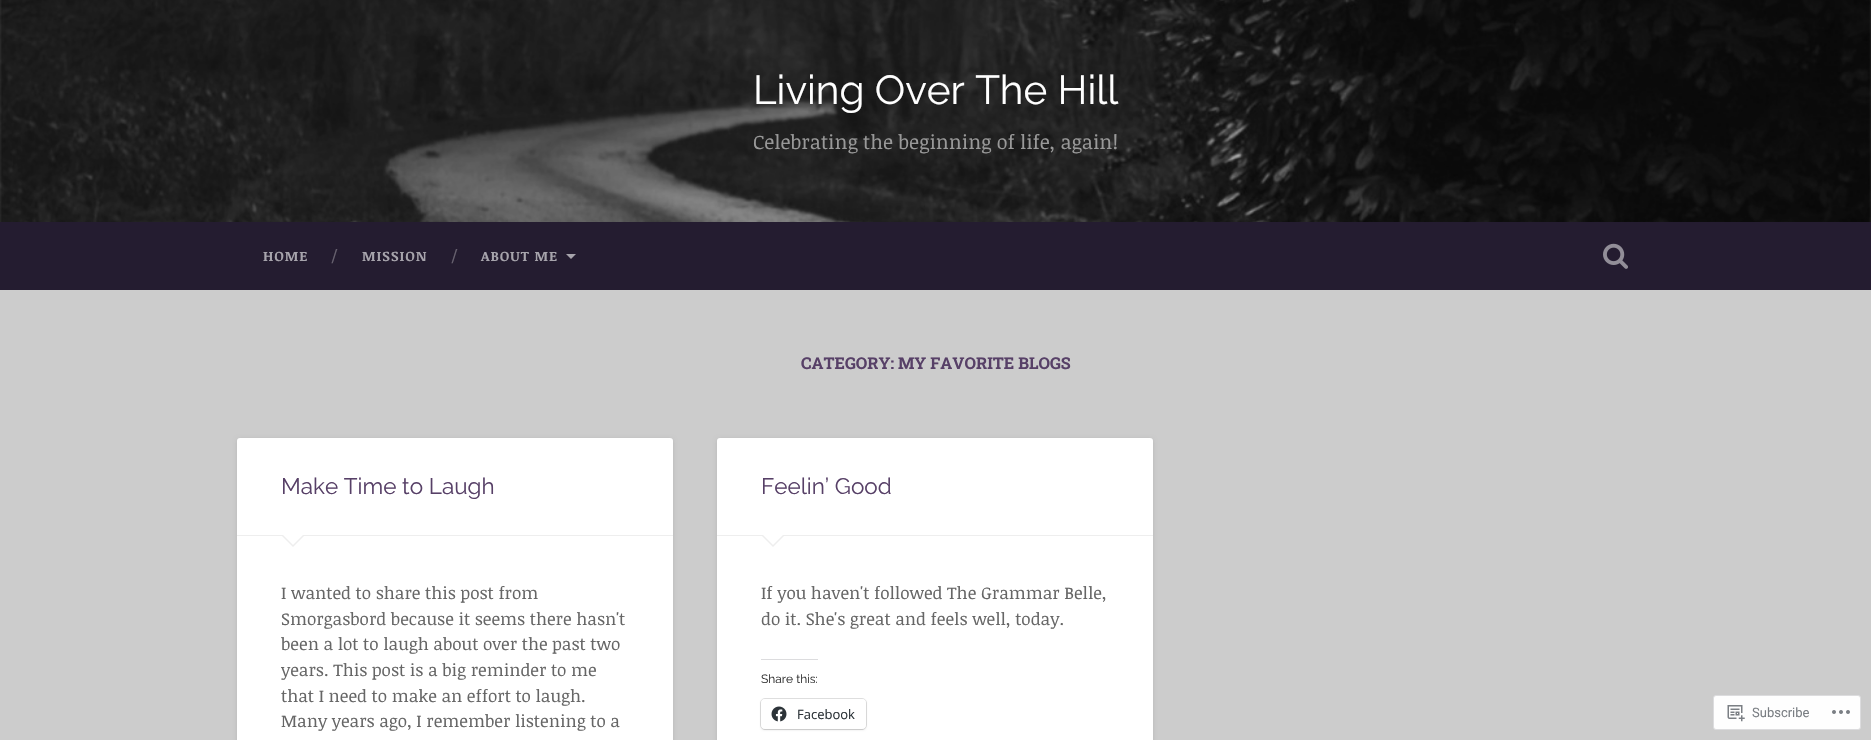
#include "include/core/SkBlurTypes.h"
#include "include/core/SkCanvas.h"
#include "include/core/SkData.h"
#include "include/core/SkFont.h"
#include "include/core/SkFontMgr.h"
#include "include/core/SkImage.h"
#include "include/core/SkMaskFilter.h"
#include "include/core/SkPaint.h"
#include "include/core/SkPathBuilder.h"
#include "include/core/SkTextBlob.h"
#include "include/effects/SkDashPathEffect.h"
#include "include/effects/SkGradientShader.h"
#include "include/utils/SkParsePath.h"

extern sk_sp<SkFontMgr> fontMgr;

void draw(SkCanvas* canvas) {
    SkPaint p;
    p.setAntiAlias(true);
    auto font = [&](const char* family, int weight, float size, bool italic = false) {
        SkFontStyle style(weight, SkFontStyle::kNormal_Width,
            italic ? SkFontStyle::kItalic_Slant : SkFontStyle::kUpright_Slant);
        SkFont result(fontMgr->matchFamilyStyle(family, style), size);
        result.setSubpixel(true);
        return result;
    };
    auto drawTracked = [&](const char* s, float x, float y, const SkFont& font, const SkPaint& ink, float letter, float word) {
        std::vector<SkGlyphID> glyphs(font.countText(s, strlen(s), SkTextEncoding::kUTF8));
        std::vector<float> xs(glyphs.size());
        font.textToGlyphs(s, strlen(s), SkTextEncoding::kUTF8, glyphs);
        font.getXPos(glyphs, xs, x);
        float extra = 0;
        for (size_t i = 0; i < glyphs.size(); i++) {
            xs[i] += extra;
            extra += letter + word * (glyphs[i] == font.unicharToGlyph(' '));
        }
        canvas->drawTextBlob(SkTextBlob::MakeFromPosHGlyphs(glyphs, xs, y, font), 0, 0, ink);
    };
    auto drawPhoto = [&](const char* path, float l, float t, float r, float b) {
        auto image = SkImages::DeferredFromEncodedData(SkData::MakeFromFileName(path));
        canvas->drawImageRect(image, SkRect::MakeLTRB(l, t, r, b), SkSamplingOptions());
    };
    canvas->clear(0xFFCCCCCC);
    drawPhoto("media/1.png", 0, 0, 1871, 222);
    auto font1 = font("Raleway", 100, 40.5f);
    p.setColor(0xFFFFFFFF);
    canvas->drawString("Living Over The Hill", 753, 104, font1, p);
    auto font2 = font("Noticia Text", 400, 19.75f);
    p.setColor(0xFF999999);
    canvas->drawString("Celebrating the beginning of life, again!", 753, 149, font2, p);
    p.setColor(0xFF241C30);
    canvas->drawRect(SkRect::MakeLTRB(0, 222, 1871, 290), p);
    auto font3 = font("Noticia Text", 700, 13.75f);
    p.setColor(0xFFA7A4AC);
    drawTracked("HOME", 263, 261, font3, p, 1, 0);
    auto font4 = font("Noticia Text", 400, 16);
    p.setColor(0xFF66606E);
    canvas->drawString("/", 331, 261, font4, p);
    p.setColor(0xFFA7A4AC);
    drawTracked("MISSION", 362, 261, font3, p, 1, 0);
    p.setColor(0xFF66606E);
    canvas->drawString("/", 451, 261, font4, p);
    p.setColor(0xFFA7A4AC);
    drawTracked("ABOUT ME", 481, 261, font3, p, 1, 0);
    canvas->drawPath(SkPathBuilder().moveTo(566, 254).lineTo(576, 254).lineTo(571, 259).close().detach(), p);
    drawPhoto("media/2.png", 1603, 243, 1628, 269);
    auto font5 = font("Roboto Slab", 700, 16.25f);
    p.setColor(0xFF574067);
    canvas->drawString("CATEGORY: MY FAVORITE BLOGS", 801, 369, font5, p);
    p.setColor(0x1A000000);
    p.setMaskFilter(SkMaskFilter::MakeBlur(kNormal_SkBlurStyle, 2));
    canvas->drawRoundRect(SkRect::MakeLTRB(237, 439, 673, 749), 3, 3, p);
    p.setMaskFilter(nullptr);
    p.setColor(0xFFFFFFFF);
    canvas->drawRoundRect(SkRect::MakeLTRB(237, 438, 673, 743), 3, 3, p);
    p.setColor(0xFFEEEEEE);
    canvas->drawRect(SkRect::MakeLTRB(237, 535, 673, 536), p);
    auto font6 = font("Raleway", 100, 22.5f);
    p.setColor(0xFF574067);
    canvas->drawString("Make Time to Laugh", 281, 494, font6, p);
    p.setColor(0xFFEEEEEE);
    canvas->drawPath(SkPathBuilder().moveTo(281, 535).lineTo(305, 535).lineTo(293, 547).close().detach(), p);
    p.setColor(0xFFFFFFFF);
    canvas->drawPath(SkPathBuilder().moveTo(282, 534).lineTo(304, 534).lineTo(293, 545).close().detach(), p);
    auto font7 = font("Noticia Text", 400, 17.1f);
    p.setColor(0xFF666666);
    {
        const struct { const char* s; float x, y; } items[] = {
            {"I wanted to share this post from", 281, 599},
            {"Smorgasbord because it seems there hasn't", 281, 625},
            {"been a lot to laugh about over the past two", 281, 650},
            {"years. This post is a big reminder to me", 281, 676},
            {"that I need to make an effort to laugh.", 281, 702},
            {"Many years ago, I remember listening to a", 281, 727},
        };
        for (auto [s, x, y] : items) {
            canvas->drawString(s, x, y, font7, p);
        }
    }
    p.setColor(0x1A000000);
    p.setMaskFilter(SkMaskFilter::MakeBlur(kNormal_SkBlurStyle, 2));
    canvas->drawRoundRect(SkRect::MakeLTRB(717, 439, 1153, 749), 3, 3, p);
    p.setMaskFilter(nullptr);
    p.setColor(0xFFFFFFFF);
    canvas->drawRoundRect(SkRect::MakeLTRB(717, 438, 1153, 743), 3, 3, p);
    p.setColor(0xFFEEEEEE);
    canvas->drawRect(SkRect::MakeLTRB(717, 535, 1153, 536), p);
    p.setColor(0xFF574067);
    canvas->drawString("Feelin’ Good", 761, 494, font6, p);
    p.setColor(0xFFEEEEEE);
    canvas->drawPath(SkPathBuilder().moveTo(761, 535).lineTo(785, 535).lineTo(773, 547).close().detach(), p);
    p.setColor(0xFFFFFFFF);
    canvas->drawPath(SkPathBuilder().moveTo(762, 534).lineTo(784, 534).lineTo(773, 545).close().detach(), p);
    p.setColor(0xFF666666);
    canvas->drawString("If you haven't followed The Grammar Belle,", 761, 599, font7, p);
    canvas->drawString("do it. She's great and feels well, today.", 761, 625, font7, p);
    p.setColor(0xFFDCDCDE);
    canvas->drawRect(SkRect::MakeLTRB(761, 659, 818, 660), p);
    auto font8 = font("Raleway", 100, 12);
    p.setColor(0xFF333333);
    canvas->drawString("Share this:", 761, 683, font8, p);
    p.setStyle(SkPaint::kStroke_Style);
    p.setStrokeWidth(1);
    p.setColor(0xFFE0E0E0);
    canvas->drawRoundRect(SkRect::MakeLTRB(760.5f, 698.5f, 866.5f, 729.5f), 4.5f, 4.5f, p);
    p.setStyle(SkPaint::kFill_Style);
    p.setColor(0x1F000000);
    p.setMaskFilter(SkMaskFilter::MakeBlur(kNormal_SkBlurStyle, 1));
    canvas->drawRoundRect(SkRect::MakeLTRB(761, 700, 866, 730), 4, 4, p);
    p.setMaskFilter(nullptr);
    p.setColor(0xFFFFFFFF);
    canvas->drawRoundRect(SkRect::MakeLTRB(761, 699, 866, 729), 4, 4, p);
    drawPhoto("media/3.png", 771, 706, 787, 722);
    auto font9 = font("Open Sans", 400, 13);
    p.setColor(0xFF2C3338);
    canvas->drawString("Facebook", 797, 719, font9, p);
    p.setColor(0xFFFEFEFE);
    canvas->drawRoundRect(SkRect::MakeLTRB(1713.5f, 695.5f, 1860.5f, 729.5f), 2.5f, 2.5f, p);
    p.setStyle(SkPaint::kStroke_Style);
    p.setColor(0xFFDCDCDE);
    canvas->drawRoundRect(SkRect::MakeLTRB(1713.5f, 695.5f, 1860.5f, 729.5f), 2.5f, 2.5f, p);
    drawPhoto("media/4.png", 1727, 705, 1745, 722);
    auto font10 = font("Roboto", 400, 13);
    p.setStyle(SkPaint::kFill_Style);
    p.setColor(0xFF7A7E83);
    canvas->drawString("Subscribe", 1752, 717, font10, p);
    drawPhoto("media/5.png", 1832, 710, 1850, 714);
}
